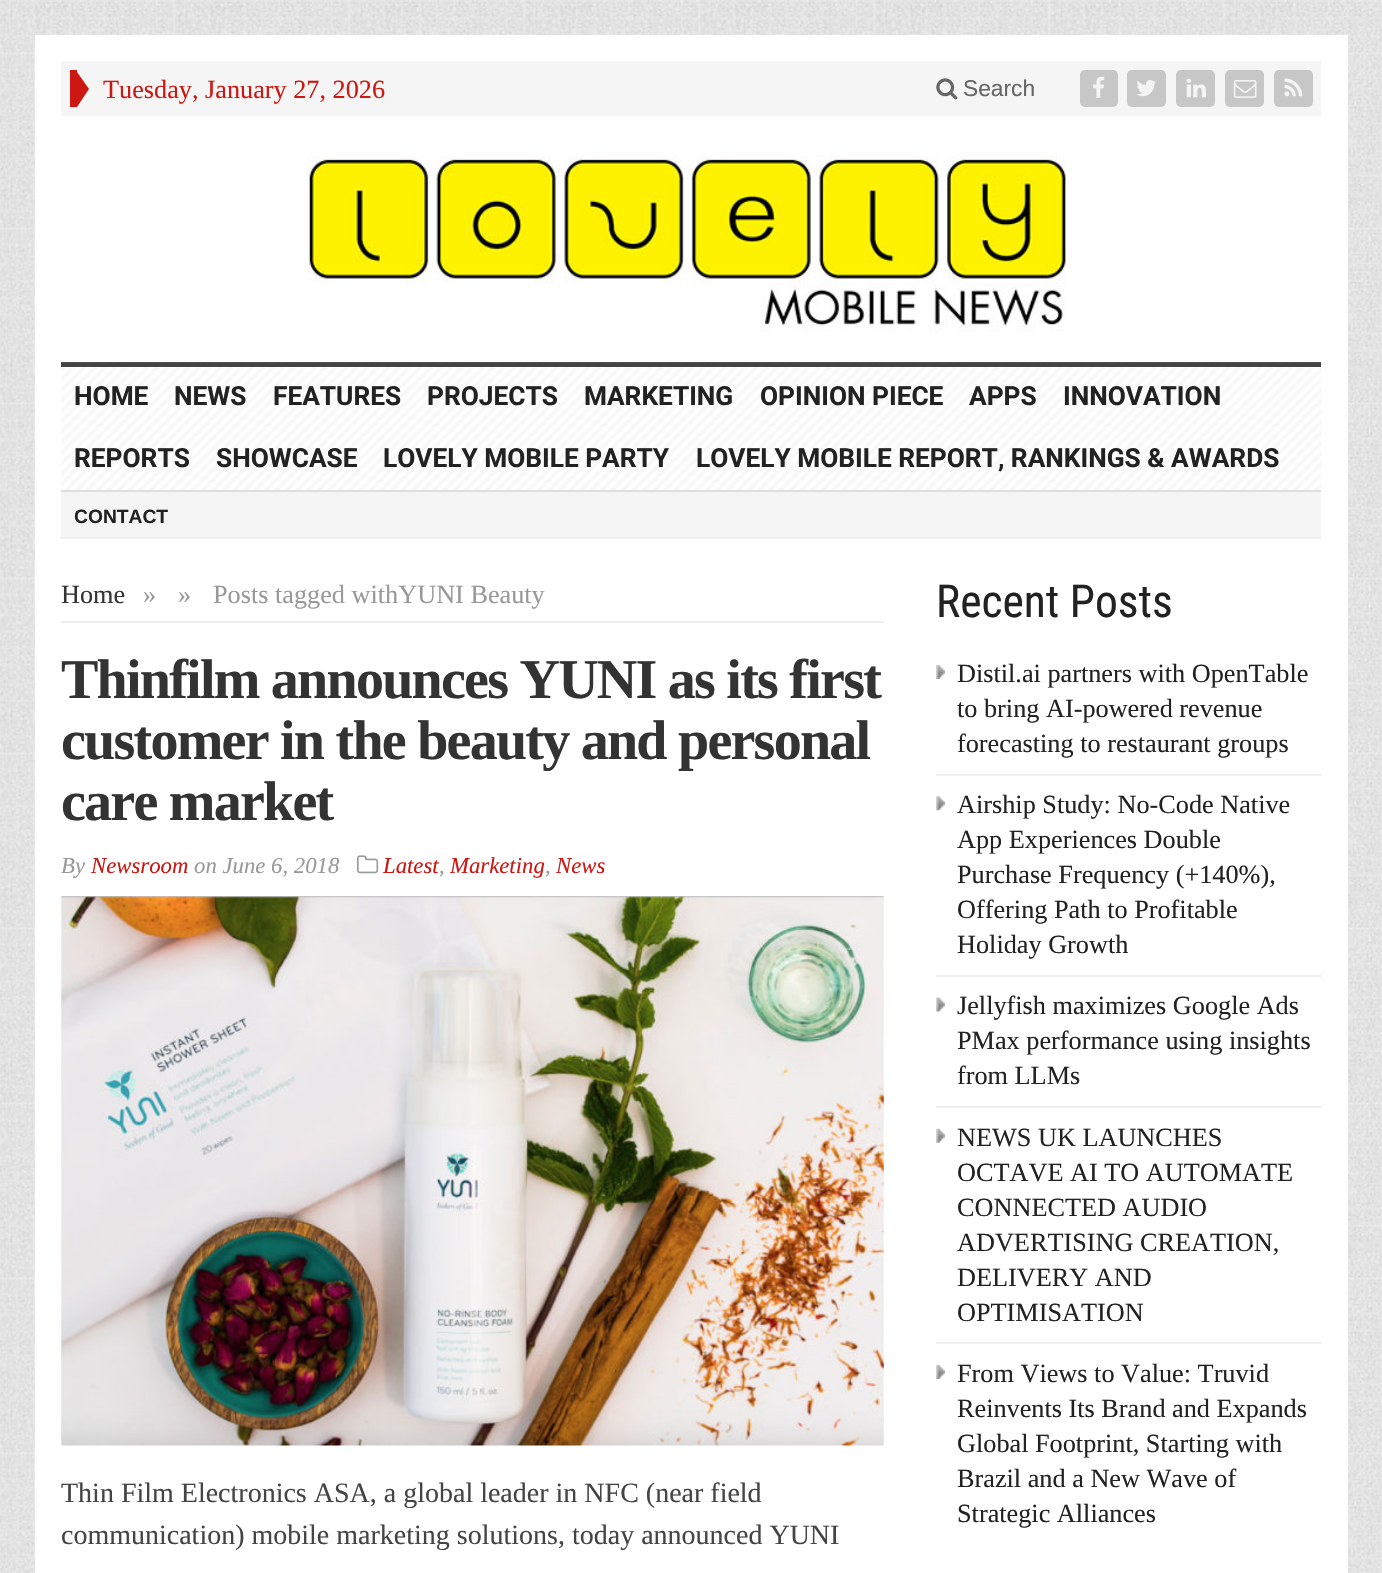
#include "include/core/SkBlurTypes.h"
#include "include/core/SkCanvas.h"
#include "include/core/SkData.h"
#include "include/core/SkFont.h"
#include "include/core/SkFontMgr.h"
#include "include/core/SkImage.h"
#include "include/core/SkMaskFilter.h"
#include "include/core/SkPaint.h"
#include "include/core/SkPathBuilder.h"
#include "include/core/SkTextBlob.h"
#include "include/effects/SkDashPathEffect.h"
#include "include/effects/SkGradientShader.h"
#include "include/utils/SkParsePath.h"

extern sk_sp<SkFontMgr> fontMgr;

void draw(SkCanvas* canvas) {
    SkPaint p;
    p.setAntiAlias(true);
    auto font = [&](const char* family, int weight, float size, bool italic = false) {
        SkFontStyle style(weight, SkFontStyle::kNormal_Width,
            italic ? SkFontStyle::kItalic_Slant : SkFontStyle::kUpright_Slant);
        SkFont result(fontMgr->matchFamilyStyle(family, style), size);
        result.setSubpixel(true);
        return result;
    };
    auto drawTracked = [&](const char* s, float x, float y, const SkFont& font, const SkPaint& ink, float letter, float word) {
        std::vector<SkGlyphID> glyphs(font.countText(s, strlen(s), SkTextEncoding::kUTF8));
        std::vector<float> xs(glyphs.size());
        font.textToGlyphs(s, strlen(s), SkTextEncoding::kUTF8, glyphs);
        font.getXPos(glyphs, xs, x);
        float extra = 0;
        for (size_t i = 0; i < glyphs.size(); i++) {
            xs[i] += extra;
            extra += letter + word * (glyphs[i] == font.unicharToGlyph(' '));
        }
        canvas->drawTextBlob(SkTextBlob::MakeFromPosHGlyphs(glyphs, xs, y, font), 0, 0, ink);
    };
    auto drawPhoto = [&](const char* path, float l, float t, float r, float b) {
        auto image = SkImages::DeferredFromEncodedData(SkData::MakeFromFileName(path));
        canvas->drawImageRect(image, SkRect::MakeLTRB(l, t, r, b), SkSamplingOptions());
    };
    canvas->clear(0xFFFFFFFF);
    drawPhoto("media/1.png", 0, 0, 1382, 1573);
    {
        const struct { float l, t, r, b; SkColor color; } items[] = {
            {35, 35, 1348, 1573, 0xFFFFFFFF},
            {61, 61, 1321, 116, 0xFFF5F5F5},
            {70, 70, 77, 107, 0xFFCD1713},
        };
        for (auto [l, t, r, b, color] : items) {
            p.setColor(color);
            canvas->drawRect(SkRect::MakeLTRB(l, t, r, b), p);
        }
    }
    canvas->drawPath(SkPathBuilder().moveTo(77, 107).lineTo(77, 72).lineTo(89, 89).close().detach(), p);
    auto font1 = font("Liberation Serif", 400, 26.25f);
    canvas->drawString("Tuesday, January 27, 2026", 103, 98, font1, p);
    drawPhoto("media/2.png", 936, 78, 958, 100);
    auto font2 = font("Liberation Sans", 400, 22.75f);
    p.setColor(0xFF666666);
    canvas->drawString("Search", 963, 96, font2, p);
    p.setColor(0xFFC7C7C7);
    canvas->drawRoundRect(SkRect::MakeLTRB(1080, 70, 1118, 107), 5, 5, p);
    drawPhoto("media/3.png", 1093, 76, 1105, 98);
    canvas->drawRoundRect(SkRect::MakeLTRB(1127, 70, 1166, 107), 5, 5, p);
    drawPhoto("media/4.png", 1136, 80, 1156, 97);
    canvas->drawRoundRect(SkRect::MakeLTRB(1176, 70, 1215, 107), 5, 5, p);
    drawPhoto("media/5.png", 1186, 78, 1206, 98);
    canvas->drawRoundRect(SkRect::MakeLTRB(1225, 70, 1264, 107), 5, 5, p);
    drawPhoto("media/6.png", 1233, 80, 1257, 98);
    canvas->drawRoundRect(SkRect::MakeLTRB(1274, 70, 1313, 107), 5, 5, p);
    drawPhoto("media/7.png", 1284, 78, 1303, 97);
    p.setColor(0xFF444444);
    canvas->drawRect(SkRect::MakeLTRB(61, 362, 1321, 367), p);
    drawPhoto("media/8.png", 61, 155, 1321, 363);
    drawPhoto("media/9.png", 61, 367, 1321, 490);
    p.setColor(0xFFDDDDDD);
    canvas->drawRect(SkRect::MakeLTRB(61, 490, 1321, 492), p);
    auto font3 = font("Roboto", 700, 26.25f);
    p.setColor(0xFF222222);
    {
        const struct { const char* s; float x, y; } items[] = {
            {"HOME", 74, 405},
            {"NEWS", 174, 405},
            {"FEATURES", 273, 405},
            {"PROJECTS", 427, 405},
            {"MARKETING", 584, 405},
            {"OPINION PIECE", 760, 405},
            {"APPS", 969, 405},
            {"INNOVATION", 1063, 405},
            {"REPORTS", 74, 467},
            {"SHOWCASE", 216, 467},
            {"LOVELY MOBILE PARTY", 383, 467},
            {"LOVELY MOBILE REPORT, RANKINGS & AWARDS", 696, 467},
        };
        for (auto [s, x, y] : items) {
            canvas->drawString(s, x, y, font3, p);
        }
    }
    p.setColor(0xFFF5F5F5);
    canvas->drawRect(SkRect::MakeLTRB(61, 492, 1321, 537), p);
    p.setColor(0xFFEFEFEF);
    canvas->drawRect(SkRect::MakeLTRB(61, 537, 1321, 539), p);
    auto font4 = font("Liberation Sans", 700, 19.25f);
    p.setColor(0xFF222222);
    canvas->drawString("CONTACT", 74, 523, font4, p);
    p.setColor(0xFFEFEFEF);
    canvas->drawRect(SkRect::MakeLTRB(61, 621, 884, 623), p);
    p.setColor(0xFF333333);
    canvas->drawString("Home", 61, 603, font1, p);
    p.setColor(0xFF999999);
    {
        const struct { const char* s; float x, y; } items[] = {
            {"»", 143, 603},
            {"»", 178, 603},
            {"Posts tagged withYUNI Beauty", 213, 603},
        };
        for (auto [s, x, y] : items) {
            canvas->drawString(s, x, y, font1, p);
        }
    }
    auto font5 = font("Liberation Serif", 700, 56);
    p.setColor(0xFF333333);
    {
        const struct { const char* s; float x, y; } items[] = {
            {"Thinfilm announces YUNI as its first", 61, 698},
            {"customer in the beauty and personal", 61, 759},
            {"care market", 61, 820},
        };
        for (auto [s, x, y] : items) {
            drawTracked(s, x, y, font5, p, -1.75f, 0);
        }
    }
    auto font6 = font("Liberation Serif", 400, 22.75f, true);
    p.setColor(0xFF999999);
    canvas->drawString("By", 61, 873, font6, p);
    p.setColor(0xFFCD1713);
    canvas->drawString("Newsroom", 91, 873, font6, p);
    p.setColor(0xFF999999);
    canvas->drawString("on June 6, 2018", 194, 873, font6, p);
    drawPhoto("media/10.png", 357, 855, 379, 874);
    p.setColor(0xFFCD1713);
    canvas->drawString("Latest", 383, 873, font6, p);
    p.setColor(0xFF999999);
    canvas->drawString(",", 439, 873, font6, p);
    p.setColor(0xFFCD1713);
    canvas->drawString("Marketing", 450, 873, font6, p);
    p.setColor(0xFF999999);
    canvas->drawString(",", 545, 873, font6, p);
    p.setColor(0xFFCD1713);
    canvas->drawString("News", 556, 873, font6, p);
    drawPhoto("media/11.png", 61, 896, 884, 1446);
    auto font7 = font("Liberation Serif", 400, 28);
    p.setColor(0xFF444444);
    canvas->drawString("Thin Film Electronics ASA, a global leader in NFC (near field", 61, 1502, font7, p);
    canvas->drawString("communication) mobile marketing solutions, today announced YUNI", 61, 1544, font7, p);
    auto font8 = font("Roboto Condensed", 400, 45.5f);
    p.setColor(0xFF222222);
    canvas->drawString("Recent Posts", 936, 617, font8, p);
    drawPhoto("media/12.png", 936, 665, 945, 679);
    p.setColor(0xFFEFEFEF);
    canvas->drawRect(SkRect::MakeLTRB(936, 774, 1321, 776), p);
    p.setColor(0xFF222222);
    {
        const struct { const char* s; float x, y; } items[] = {
            {"Distil.ai partners with OpenTable", 957, 682},
            {"to bring AI-powered revenue", 957, 717},
            {"forecasting to restaurant groups", 957, 752},
        };
        for (auto [s, x, y] : items) {
            canvas->drawString(s, x, y, font1, p);
        }
    }
    drawPhoto("media/13.png", 936, 796, 945, 811);
    p.setColor(0xFFEFEFEF);
    canvas->drawRect(SkRect::MakeLTRB(936, 975, 1321, 977), p);
    p.setColor(0xFF222222);
    {
        const struct { const char* s; float x, y; } items[] = {
            {"Airship Study: No-Code Native", 957, 813},
            {"App Experiences Double", 957, 848},
            {"Purchase Frequency (+140%),", 957, 883},
            {"Offering Path to Profitable", 957, 918},
            {"Holiday Growth", 957, 953},
        };
        for (auto [s, x, y] : items) {
            canvas->drawString(s, x, y, font1, p);
        }
    }
    drawPhoto("media/14.png", 936, 997, 945, 1012);
    p.setColor(0xFFEFEFEF);
    canvas->drawRect(SkRect::MakeLTRB(936, 1106, 1321, 1108), p);
    p.setColor(0xFF222222);
    {
        const struct { const char* s; float x, y; } items[] = {
            {"Jellyfish maximizes Google Ads", 957, 1014},
            {"PMax performance using insights", 957, 1049},
            {"from LLMs", 957, 1084},
        };
        for (auto [s, x, y] : items) {
            canvas->drawString(s, x, y, font1, p);
        }
    }
    drawPhoto("media/15.png", 936, 1128, 945, 1143);
    p.setColor(0xFFEFEFEF);
    canvas->drawRect(SkRect::MakeLTRB(936, 1342, 1321, 1344), p);
    p.setColor(0xFF222222);
    {
        const struct { const char* s; float x, y; } items[] = {
            {"NEWS UK LAUNCHES", 957, 1146},
            {"OCTAVE AI TO AUTOMATE", 957, 1181},
            {"CONNECTED AUDIO", 957, 1216},
            {"ADVERTISING CREATION,", 957, 1251},
            {"DELIVERY AND", 957, 1286},
            {"OPTIMISATION", 957, 1321},
        };
        for (auto [s, x, y] : items) {
            canvas->drawString(s, x, y, font1, p);
        }
    }
    drawPhoto("media/12.png", 936, 1365, 945, 1379);
    {
        const struct { const char* s; float x, y; } items[] = {
            {"From Views to Value: Truvid", 957, 1382},
            {"Reinvents Its Brand and Expands", 957, 1417},
            {"Global Footprint, Starting with", 957, 1452},
            {"Brazil and a New Wave of", 957, 1487},
            {"Strategic Alliances", 957, 1522},
        };
        for (auto [s, x, y] : items) {
            canvas->drawString(s, x, y, font1, p);
        }
    }
}
